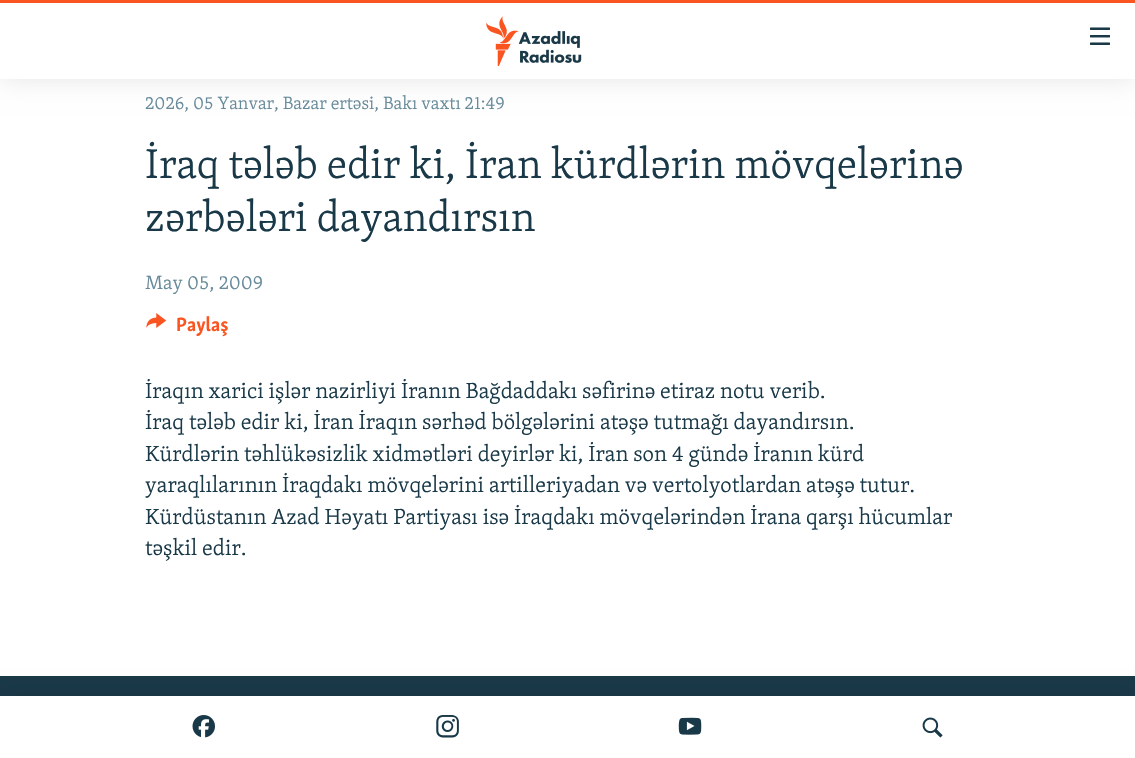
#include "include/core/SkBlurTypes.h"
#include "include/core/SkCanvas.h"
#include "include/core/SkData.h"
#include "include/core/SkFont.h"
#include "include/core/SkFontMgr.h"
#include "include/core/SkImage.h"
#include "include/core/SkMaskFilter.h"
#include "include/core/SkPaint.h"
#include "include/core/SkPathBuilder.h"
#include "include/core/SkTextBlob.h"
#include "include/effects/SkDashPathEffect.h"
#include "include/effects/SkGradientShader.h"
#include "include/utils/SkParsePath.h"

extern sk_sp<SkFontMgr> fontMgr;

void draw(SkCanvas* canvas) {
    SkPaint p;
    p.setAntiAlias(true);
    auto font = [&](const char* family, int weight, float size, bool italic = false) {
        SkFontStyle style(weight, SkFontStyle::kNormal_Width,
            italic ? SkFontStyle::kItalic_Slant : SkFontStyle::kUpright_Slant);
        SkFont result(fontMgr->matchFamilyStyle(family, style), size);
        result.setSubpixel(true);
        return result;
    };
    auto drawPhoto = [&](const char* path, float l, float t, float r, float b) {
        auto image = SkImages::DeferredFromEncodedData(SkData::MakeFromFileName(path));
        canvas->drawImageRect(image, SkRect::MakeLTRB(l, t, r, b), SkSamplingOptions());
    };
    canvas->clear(0xFFFFFFFF);
    p.setColor(0x1A000000);
    p.setMaskFilter(SkMaskFilter::MakeBlur(kNormal_SkBlurStyle, 12.5f));
    canvas->drawRect(SkRect::MakeLTRB(0, 0, 1135, 79), p);
    p.setMaskFilter(nullptr);
    p.setColor(0xFFFFFFFF);
    canvas->drawRect(SkRect::MakeLTRB(0, 3, 1135, 79), p);
    p.setColor(0xFFFA5420);
    canvas->drawRect(SkRect::MakeLTRB(0, 0, 1135, 3), p);
    drawPhoto("media/1.png", 486, 16, 582, 66);
    drawPhoto("media/2.png", 1090, 27, 1110, 45);
    p.setColor(0xFF1A3948);
    canvas->drawRect(SkRect::MakeLTRB(0, 676, 1135, 696), p);
    p.setColor(0x1A000000);
    p.setMaskFilter(SkMaskFilter::MakeBlur(kNormal_SkBlurStyle, 12.5f));
    canvas->drawRect(SkRect::MakeLTRB(0, 696, 1135, 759), p);
    p.setMaskFilter(nullptr);
    p.setColor(0xFFFFFFFF);
    canvas->drawRect(SkRect::MakeLTRB(0, 696, 1135, 758), p);
    drawPhoto("media/3.png", 192, 715, 215, 738);
    drawPhoto("media/4.png", 436, 715, 459, 738);
    drawPhoto("media/5.png", 678, 717, 702, 735);
    drawPhoto("media/6.png", 922, 717, 943, 738);
    auto font1 = font("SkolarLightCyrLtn", 300, 18.25f);
    p.setColor(0xFF678A9B);
    canvas->drawString("2026, 05 Yanvar, Bazar ertəsi, Bakı vaxtı 21:49", 145, 109, font1, p);
    auto font2 = font("SkolarLightCyrLtn", 300, 42.75f);
    p.setColor(0xFF1A3948);
    canvas->drawString("İraq tələb edir ki, İran kürdlərin mövqelərinə", 145, 178, font2, p);
    canvas->drawString("zərbələri dayandırsın", 145, 231, font2, p);
    auto font3 = font("SkolarLightCyrLtn", 300, 19.75f);
    p.setColor(0xFF678A9B);
    canvas->drawString("May 05, 2009", 145, 289, font3, p);
    drawPhoto("media/7.png", 146, 313, 167, 328);
    auto font4 = font("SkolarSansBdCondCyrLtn", 700, 19.75f);
    p.setColor(0xFFFA5420);
    canvas->drawString("Paylaş", 176, 331, font4, p);
    auto font5 = font("SkolarLightCyrLtn", 300, 22.5f);
    p.setColor(0xFF1A3948);
    {
        const struct { const char* s; float x, y; } items[] = {
            {"İraqın xarici işlər nazirliyi İranın Bağdaddakı səfirinə etiraz notu verib.", 145, 398},
            {"İraq tələb edir ki, İran İraqın sərhəd bölgələrini atəşə tutmağı dayandırsın.", 145, 429},
            {"Kürdlərin təhlükəsizlik xidmətləri deyirlər ki, İran son 4 gündə İranın kürd", 145, 461},
            {"yaraqlılarının İraqdakı mövqelərini artilleriyadan və vertolyotlardan atəşə tutur.", 145, 492},
            {"Kürdüstanın Azad Həyatı Partiyası isə İraqdakı mövqelərindən İrana qarşı hücumlar", 145, 524},
            {"təşkil edir.", 145, 555},
        };
        for (auto [s, x, y] : items) {
            canvas->drawString(s, x, y, font5, p);
        }
    }
}
